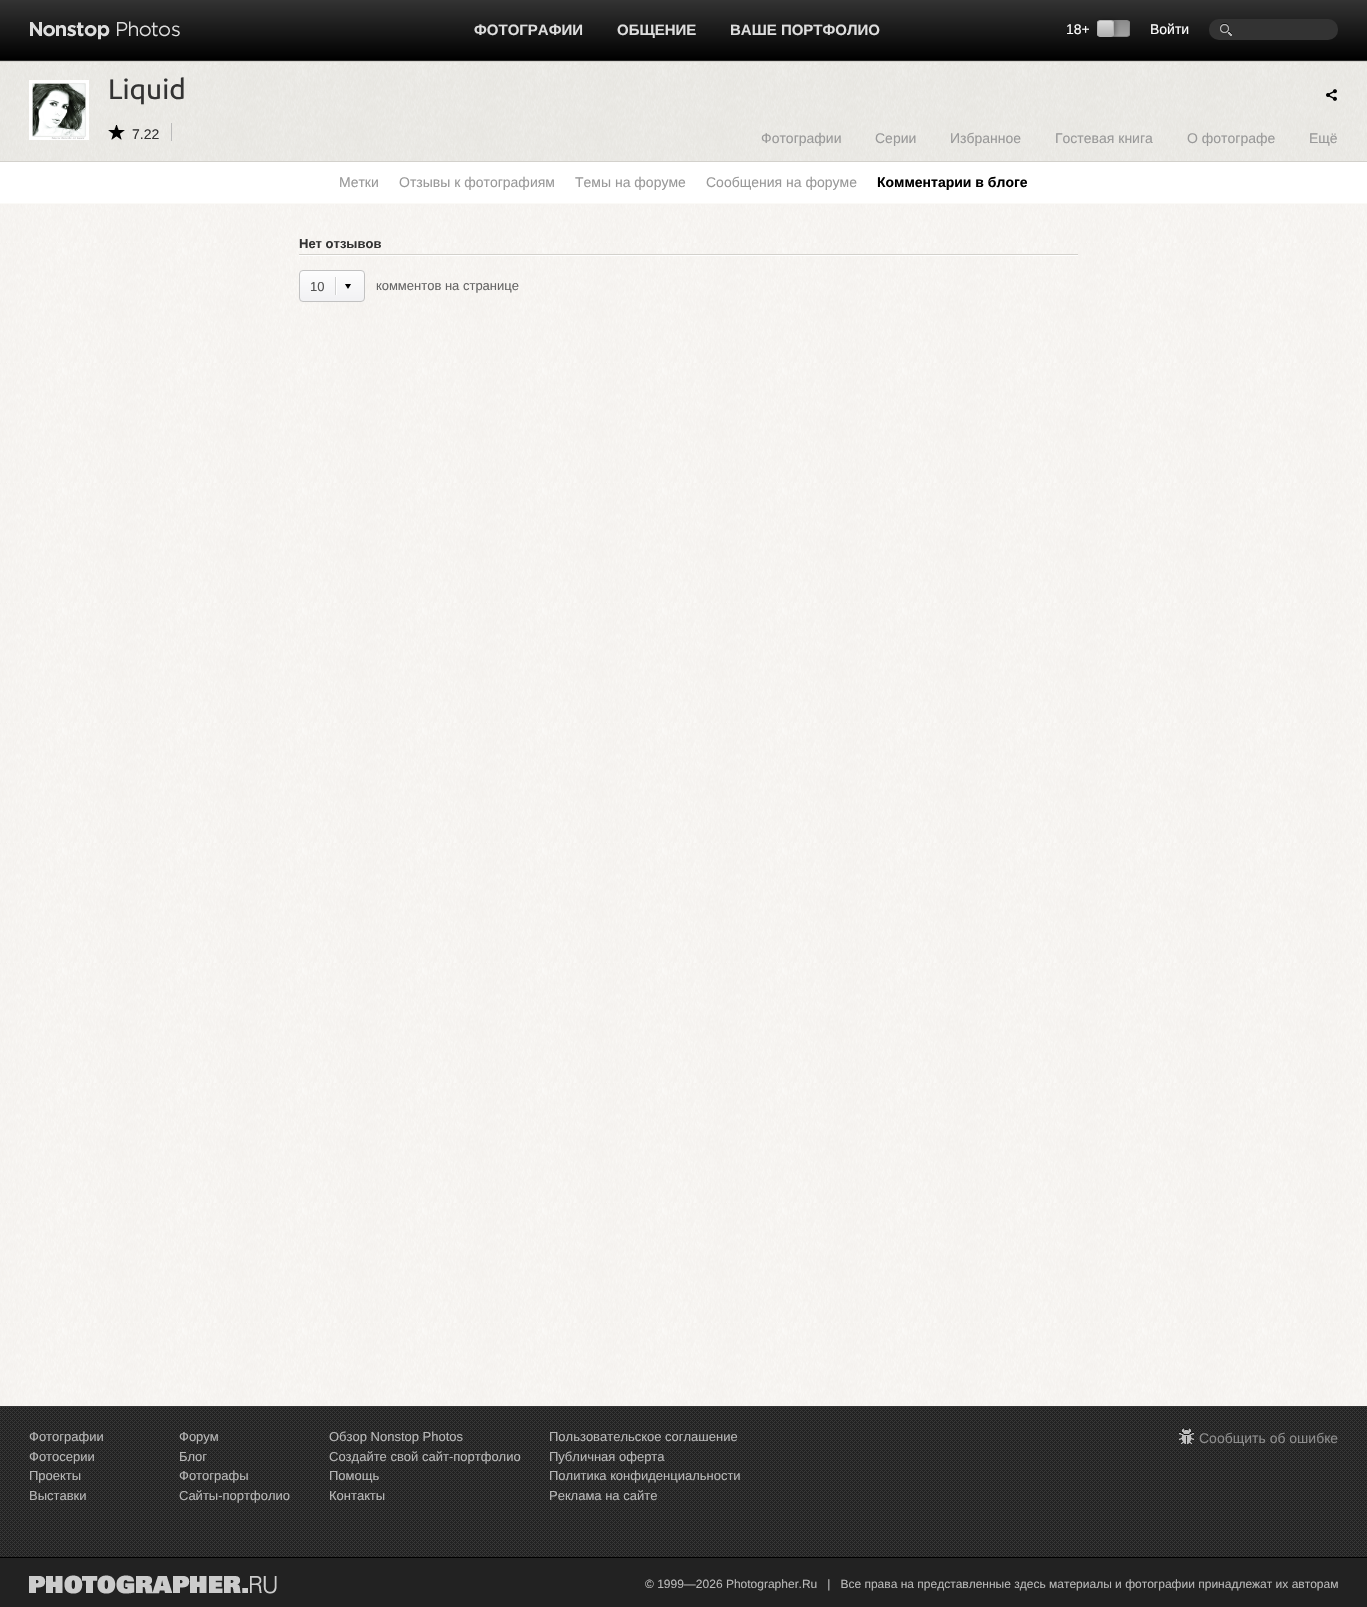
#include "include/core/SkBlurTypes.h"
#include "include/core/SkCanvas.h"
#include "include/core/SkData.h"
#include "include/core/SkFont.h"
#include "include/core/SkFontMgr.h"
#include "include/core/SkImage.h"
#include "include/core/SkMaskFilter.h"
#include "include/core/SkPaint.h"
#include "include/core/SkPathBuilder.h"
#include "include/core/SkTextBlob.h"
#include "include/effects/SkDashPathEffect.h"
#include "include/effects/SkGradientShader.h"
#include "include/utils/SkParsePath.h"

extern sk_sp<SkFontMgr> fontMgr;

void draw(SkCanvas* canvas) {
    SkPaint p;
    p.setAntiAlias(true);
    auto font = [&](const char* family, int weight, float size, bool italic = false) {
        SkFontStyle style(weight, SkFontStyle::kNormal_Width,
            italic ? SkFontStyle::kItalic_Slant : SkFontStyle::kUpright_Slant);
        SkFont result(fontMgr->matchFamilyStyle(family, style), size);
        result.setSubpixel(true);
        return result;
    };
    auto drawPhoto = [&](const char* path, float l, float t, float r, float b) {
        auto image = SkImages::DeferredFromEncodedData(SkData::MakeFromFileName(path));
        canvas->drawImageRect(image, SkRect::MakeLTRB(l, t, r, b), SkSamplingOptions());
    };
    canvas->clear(0xFFFFFFFF);
    drawPhoto("media/1.png", 0, 204, 1367, 1406);
    {
        const SkColor colors[] = {0xFF333333, 0xFF000000};
        const float stops[] = {0, 1};
        const SkPoint ends[] = {{684, 0}, {684, 60}};
        p.setShader(SkGradientShader::MakeLinear(ends, colors, stops, 2, SkTileMode::kClamp));
        p.setAlpha(255);
    }
    canvas->drawRect(SkRect::MakeLTRB(0, 0, 1367, 60), p);
    drawPhoto("media/2.png", 30, 21, 180, 40);
    auto font1 = font("Liberation Sans", 700, 15);
    p.setShader(nullptr);
    p.setColor(0xFFDDDDDD);
    {
        const struct { const char* s; float x, y; } items[] = {
            {"ФОТОГРАФИИ", 474, 35},
            {"ОБЩЕНИЕ", 617, 35},
            {"ВАШЕ ПОРТФОЛИО", 730, 35},
        };
        for (auto [s, x, y] : items) {
            canvas->drawString(s, x, y, font1, p);
        }
    }
    auto font2 = font("Liberation Sans", 400, 14);
    p.setColor(0xFFFFFFFF);
    canvas->drawString("18+", 1066, 34, font2, p);
    canvas->save();
    canvas->clipPath(SkPathBuilder().moveTo(1101, 20).lineTo(1127, 20).cubicTo(1128.5f, 20, 1130, 21.5f, 1130, 23).lineTo(1130, 34).cubicTo(1130, 35.5f, 1128.5f, 37, 1127, 37).lineTo(1101, 37).cubicTo(1099.5f, 37, 1098, 35.5f, 1098, 34).lineTo(1098, 23).cubicTo(1098, 21.5f, 1099.5f, 20, 1101, 20).close().detach(), true);
    {
        const SkColor colors[] = {0xFFA2A2A2, 0xFF8C8C8C};
        const float stops[] = {0, 1};
        const SkPoint ends[] = {{1114, 36}, {1114, 21}};
        p.setShader(SkGradientShader::MakeLinear(ends, colors, stops, 2, SkTileMode::kClamp));
        p.setAlpha(255);
    }
    canvas->drawRect(SkRect::MakeLTRB(1113, 21, 1130, 36), p);
    canvas->restore();
    p.setStyle(SkPaint::kStroke_Style);
    p.setStrokeWidth(1);
    p.setShader(nullptr);
    p.setColor(0xFF858585);
    canvas->drawRoundRect(SkRect::MakeLTRB(1098.5f, 20.5f, 1129.5f, 36.5f), 2.5f, 2.5f, p);
    p.setStyle(SkPaint::kFill_Style);
    p.setColor(0x4D000000);
    p.setMaskFilter(SkMaskFilter::MakeBlur(kNormal_SkBlurStyle, 2));
    canvas->drawRoundRect(SkRect::MakeLTRB(1099, 20, 1116, 37), 3, 3, p);
    p.setMaskFilter(nullptr);
    canvas->save();
    canvas->clipPath(SkPathBuilder().moveTo(1100, 20).lineTo(1111, 20).cubicTo(1112.5f, 20, 1114, 21.5f, 1114, 23).lineTo(1114, 34).cubicTo(1114, 35.5f, 1112.5f, 37, 1111, 37).lineTo(1100, 37).cubicTo(1098.5f, 37, 1097, 35.5f, 1097, 34).lineTo(1097, 23).cubicTo(1097, 21.5f, 1098.5f, 20, 1100, 20).close().detach(), true);
    {
        const SkColor colors[] = {0xFFB1B1B1, 0xFFDADADA};
        const float stops[] = {0, 1};
        const SkPoint ends[] = {{1106, 36}, {1106, 21}};
        p.setShader(SkGradientShader::MakeLinear(ends, colors, stops, 2, SkTileMode::kClamp));
        p.setAlpha(255);
    }
    canvas->drawRect(SkRect::MakeLTRB(1097, 21, 1114, 36), p);
    canvas->restore();
    p.setStyle(SkPaint::kStroke_Style);
    p.setShader(nullptr);
    p.setColor(0xFFB1B1B1);
    canvas->drawRoundRect(SkRect::MakeLTRB(1097.5f, 20.5f, 1113.5f, 36.5f), 2.5f, 2.5f, p);
    p.setStyle(SkPaint::kFill_Style);
    p.setColor(0xFFFFFFFF);
    canvas->drawString("Войти", 1150, 34, font2, p);
    p.setColor(0xFF333333);
    canvas->drawRoundRect(SkRect::MakeLTRB(1209, 19, 1338, 40), 10, 10, p);
    drawPhoto("media/3.png", 1220, 23, 1232, 36);
    p.setColor(0xFF282828);
    canvas->drawRect(SkRect::MakeLTRB(0, 60, 1367, 61), p);
    drawPhoto("media/4.png", 0, 62, 1367, 161);
    p.setColor(0xFFD3D1CC);
    canvas->drawRect(SkRect::MakeLTRB(0, 61, 1367, 62), p);
    canvas->drawRect(SkRect::MakeLTRB(0, 161, 1367, 162), p);
    drawPhoto("media/5.png", 29, 80, 89, 140);
    auto font3 = font("Ubuntu", 400, 28);
    p.setColor(0xFF333333);
    canvas->drawString("Liquid", 108, 99, font3, p);
    drawPhoto("media/6.png", 108, 125, 125, 140);
    p.setColor(0xFFBBBBBB);
    canvas->drawRect(SkRect::MakeLTRB(171, 123, 172, 141), p);
    p.setColor(0xFF333333);
    canvas->drawString("7.22", 132, 139, font2, p);
    drawPhoto("media/7.png", 1326, 89, 1337, 101);
    p.setColor(0xFF999999);
    {
        const struct { const char* s; float x, y; } items[] = {
            {"Фотографии", 761, 143},
            {"Серии", 875, 143},
            {"Избранное", 950, 143},
            {"Гостевая книга", 1055, 143},
            {"О фотографе", 1187, 143},
            {"Ещё", 1309, 143},
        };
        for (auto [s, x, y] : items) {
            canvas->drawString(s, x, y, font2, p);
        }
    }
    p.setColor(0xFFFBFAF7);
    canvas->drawRect(SkRect::MakeLTRB(0, 203, 1367, 204), p);
    p.setColor(0xFF999999);
    {
        const struct { const char* s; float x, y; } items[] = {
            {"Метки", 339, 187},
            {"Отзывы к фотографиям", 399, 187},
            {"Темы на форуме", 575, 187},
            {"Сообщения на форуме", 706, 187},
        };
        for (auto [s, x, y] : items) {
            canvas->drawString(s, x, y, font2, p);
        }
    }
    auto font4 = font("Liberation Sans", 700, 14);
    p.setColor(0xFF000000);
    canvas->drawString("Комментарии в блоге", 877, 187, font4, p);
    auto font5 = font("Liberation Sans", 700, 13);
    p.setColor(0xFF333333);
    canvas->drawString("Нет отзывов", 299, 248, font5, p);
    p.setColor(0xFFD3D1CC);
    canvas->drawRect(SkRect::MakeLTRB(299, 254, 1078, 255), p);
    p.setColor(0xFFFFFFFF);
    canvas->drawRect(SkRect::MakeLTRB(299, 255, 1078, 256), p);
    canvas->save();
    canvas->clipPath(SkPathBuilder().moveTo(303, 270).lineTo(361, 270).cubicTo(363, 270, 365, 272, 365, 274).lineTo(365, 298).cubicTo(365, 300, 363, 302, 361, 302).lineTo(303, 302).cubicTo(301, 302, 299, 300, 299, 298).lineTo(299, 274).cubicTo(299, 272, 301, 270, 303, 270).close().detach(), true);
    {
        const SkColor colors[] = {0xFFFDFDFD, 0xFFF1F1F3};
        const float stops[] = {0, 1};
        const SkPoint ends[] = {{332, 271}, {332, 301}};
        p.setShader(SkGradientShader::MakeLinear(ends, colors, stops, 2, SkTileMode::kClamp));
        p.setAlpha(255);
    }
    canvas->drawRect(SkRect::MakeLTRB(299, 271, 365, 301), p);
    canvas->restore();
    p.setStyle(SkPaint::kStroke_Style);
    p.setShader(nullptr);
    p.setColor(0xFFC2C2C2);
    canvas->drawRoundRect(SkRect::MakeLTRB(299.5f, 270.5f, 364.5f, 301.5f), 3.5f, 3.5f, p);
    drawPhoto("media/8.png", 335, 277, 351, 295);
    auto font6 = font("Liberation Sans", 400, 13);
    p.setStyle(SkPaint::kFill_Style);
    p.setColor(0xFF545454);
    canvas->drawString("10", 310, 291, font6, p);
    p.setColor(0xFF666666);
    canvas->drawString("комментов на странице", 376, 290, font6, p);
    p.setColor(0xFF222222);
    canvas->drawRect(SkRect::MakeLTRB(0, 1558, 1367, 1607), p);
    p.setColor(0xFF333333);
    canvas->drawRect(SkRect::MakeLTRB(0, 1406, 1367, 1407), p);
    drawPhoto("media/9.png", 0, 1407, 1367, 1557);
    p.setColor(0xFF000000);
    canvas->drawRect(SkRect::MakeLTRB(0, 1557, 1367, 1558), p);
    p.setColor(0xFFB8B8B8);
    {
        const struct { const char* s; float x, y; } items[] = {
            {"Фотографии", 29, 1441},
            {"Фотосерии", 29, 1461},
            {"Проекты", 29, 1480},
            {"Выставки", 29, 1500},
            {"Форум", 179, 1441},
            {"Блог", 179, 1461},
            {"Фотографы", 179, 1480},
            {"Сайты-портфолио", 179, 1500},
            {"Обзор Nonstop Photos", 329, 1441},
            {"Создайте свой сайт-портфолио", 329, 1461},
            {"Помощь", 329, 1480},
            {"Контакты", 329, 1500},
            {"Пользовательское соглашение", 549, 1441},
            {"Публичная оферта", 549, 1461},
            {"Политика конфиденциальности", 549, 1480},
            {"Реклама на сайте", 549, 1500},
        };
        for (auto [s, x, y] : items) {
            canvas->drawString(s, x, y, font6, p);
        }
    }
    drawPhoto("media/10.png", 1179, 1427, 1194, 1444);
    p.setColor(0xFF8D8D8D);
    canvas->drawString("Сообщить об ошибке", 1199, 1443, font2, p);
    drawPhoto("media/11.png", 29, 1575, 277, 1594);
    auto font7 = font("Liberation Sans", 400, 12);
    p.setColor(0xFFB8B8B8);
    canvas->drawString("© 1999—2026 Photographer.Ru   |   Все права на представленные здесь материалы и фотографии принадлежат их авторам", 645, 1588, font7, p);
}
